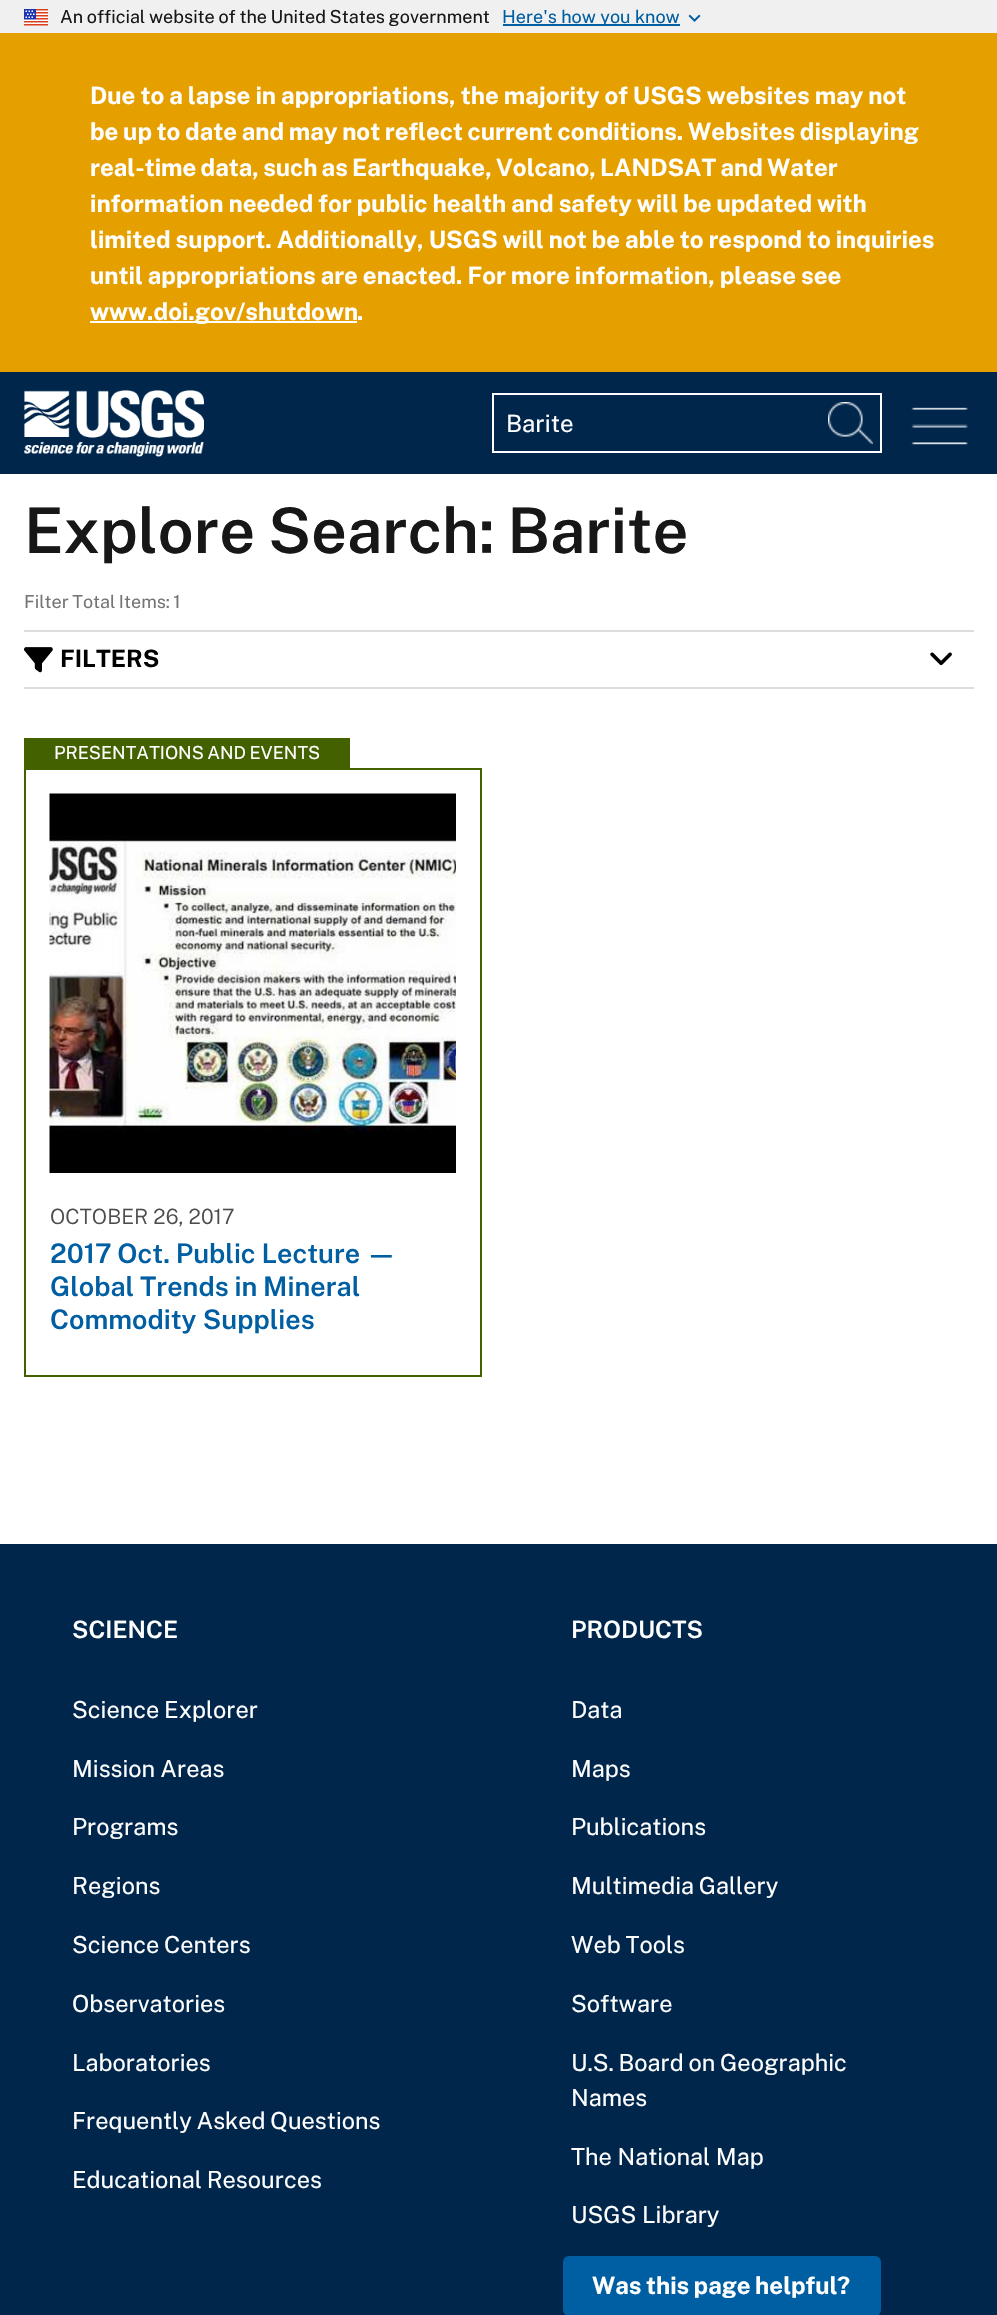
#include "include/core/SkBlurTypes.h"
#include "include/core/SkCanvas.h"
#include "include/core/SkData.h"
#include "include/core/SkFont.h"
#include "include/core/SkFontMgr.h"
#include "include/core/SkImage.h"
#include "include/core/SkMaskFilter.h"
#include "include/core/SkPaint.h"
#include "include/core/SkPathBuilder.h"
#include "include/core/SkTextBlob.h"
#include "include/effects/SkDashPathEffect.h"
#include "include/effects/SkGradientShader.h"
#include "include/utils/SkParsePath.h"

extern sk_sp<SkFontMgr> fontMgr;

void draw(SkCanvas* canvas) {
    SkPaint p;
    p.setAntiAlias(true);
    auto font = [&](const char* family, int weight, float size, bool italic = false) {
        SkFontStyle style(weight, SkFontStyle::kNormal_Width,
            italic ? SkFontStyle::kItalic_Slant : SkFontStyle::kUpright_Slant);
        SkFont result(fontMgr->matchFamilyStyle(family, style), size);
        result.setSubpixel(true);
        return result;
    };
    auto drawTracked = [&](const char* s, float x, float y, const SkFont& font, const SkPaint& ink, float letter, float word) {
        std::vector<SkGlyphID> glyphs(font.countText(s, strlen(s), SkTextEncoding::kUTF8));
        std::vector<float> xs(glyphs.size());
        font.textToGlyphs(s, strlen(s), SkTextEncoding::kUTF8, glyphs);
        font.getXPos(glyphs, xs, x);
        float extra = 0;
        for (size_t i = 0; i < glyphs.size(); i++) {
            xs[i] += extra;
            extra += letter + word * (glyphs[i] == font.unicharToGlyph(' '));
        }
        canvas->drawTextBlob(SkTextBlob::MakeFromPosHGlyphs(glyphs, xs, y, font), 0, 0, ink);
    };
    auto drawPhoto = [&](const char* path, float l, float t, float r, float b) {
        auto image = SkImages::DeferredFromEncodedData(SkData::MakeFromFileName(path));
        canvas->drawImageRect(image, SkRect::MakeLTRB(l, t, r, b), SkSamplingOptions());
    };
    canvas->clear(0xFFFFFFFF);
    p.setColor(0xFFF0F0F0);
    canvas->drawRect(SkRect::MakeLTRB(0, 0, 997, 33), p);
    drawPhoto("media/1.png", 24, 9, 48, 26);
    auto font1 = font("Public Sans", 400, 18);
    p.setColor(0xFF171717);
    drawTracked("An official website of the United States government", 60, 23, font1, p, 0, -0.75f);
    p.setColor(0xFF005EA2);
    canvas->drawRect(SkRect::MakeLTRB(503, 24, 680, 26), p);
    canvas->drawString("Here's how you know", 502, 23, font1, p);
    drawPhoto("media/2.png", 688, 14, 701, 22);
    p.setColor(0xFF00264C);
    canvas->drawRect(SkRect::MakeLTRB(0, 372, 997, 474), p);
    p.setColor(0xFFE5A000);
    canvas->drawRect(SkRect::MakeLTRB(0, 33, 997, 372), p);
    auto font2 = font("Public Sans", 700, 24);
    p.setColor(0xFFFFFFFF);
    drawTracked("Due to a lapse in appropriations, the majority of USGS websites may not", 90, 104, font2, p, 0, -0.4f);
    drawTracked("be up to date and may not reflect current conditions. Websites displaying", 90, 140, font2, p, 0, -0.75f);
    drawTracked("real-time data, such as Earthquake, Volcano, LANDSAT and Water", 90, 176, font2, p, 0, -1.25f);
    drawTracked("information needed for public health and safety will be updated with", 90, 212, font2, p, 0, -0.4f);
    drawTracked("limited support. Additionally, USGS will not be able to respond to inquiries", 90, 248, font2, p, 0, -0.5f);
    drawTracked("until appropriations are enacted. For more information, please see", 90, 284, font2, p, 0, -0.5f);
    canvas->drawRect(SkRect::MakeLTRB(90, 321, 357, 323), p);
    canvas->drawString("www.doi.gov/shutdown", 90, 320, font2, p);
    canvas->drawString(".", 357, 320, font2, p);
    drawPhoto("media/3.png", 24, 390, 204, 457);
    p.setStyle(SkPaint::kStroke_Style);
    p.setStrokeWidth(2);
    canvas->drawRect(SkRect::MakeLTRB(493, 394, 881, 452), p);
    auto font3 = font("Public Sans", 400, 24);
    p.setStyle(SkPaint::kFill_Style);
    canvas->drawString("Barite", 506, 432, font3, p);
    drawPhoto("media/4.png", 828, 402, 873, 444);
    drawPhoto("media/5.png", 911, 407, 968, 445);
    auto font4 = font("Public Sans", 600, 63);
    p.setColor(0xFF171717);
    drawTracked("Explore Search: Barite", 24, 553, font4, p, 0, -2);
    p.setColor(0xFF757575);
    drawTracked("Filter Total Items: 1", 24, 608, font1, p, 0, -1);
    p.setColor(0xFFDDDDDD);
    canvas->drawRect(SkRect::MakeLTRB(24, 630, 974, 632), p);
    canvas->drawRect(SkRect::MakeLTRB(24, 687, 974, 689), p);
    drawPhoto("media/6.png", 24, 647, 53, 673);
    p.setColor(0xFF000000);
    canvas->drawString("FILTERS", 60, 667, font2, p);
    drawPhoto("media/7.png", 930, 652, 952, 666);
    p.setColor(0xFF446100);
    canvas->drawRect(SkRect::MakeLTRB(24, 738, 350, 768), p);
    p.setColor(0xFFFFFFFF);
    drawTracked("PRESENTATIONS AND EVENTS", 54, 759, font1, p, 0, -1);
    p.setStyle(SkPaint::kStroke_Style);
    p.setColor(0xFF446100);
    canvas->drawRect(SkRect::MakeLTRB(25, 769, 481, 1376), p);
    drawPhoto("media/8.png", 49, 793, 456, 1173);
    auto font5 = font("Public Sans", 300, 21);
    p.setStyle(SkPaint::kFill_Style);
    p.setColor(0xFF4D4D4D);
    canvas->drawString("OCTOBER 26, 2017", 50, 1224, font5, p);
    auto font6 = font("Public Sans", 600, 27);
    p.setColor(0xFF005EA2);
    drawTracked("2017 Oct. Public Lecture —", 50, 1263, font6, p, 0, -0.5f);
    drawTracked("Global Trends in Mineral", 50, 1296, font6, p, 0, -0.5f);
    canvas->drawString("Commodity Supplies", 50, 1329, font6, p);
    p.setColor(0xFF00264C);
    canvas->drawRect(SkRect::MakeLTRB(0, 1544, 997, 2315), p);
    auto font7 = font("Public Sans", 600, 24);
    p.setColor(0xFFFFFFFF);
    canvas->drawString("SCIENCE", 72, 1638, font7, p);
    auto font8 = font("Public Sans", 400, 23.5f);
    drawTracked("Science Explorer", 72, 1718, font8, p, 0, -1);
    drawTracked("Mission Areas", 72, 1777, font8, p, 0, -0.5f);
    canvas->drawString("Programs", 72, 1835, font8, p);
    canvas->drawString("Regions", 72, 1894, font8, p);
    drawTracked("Science Centers", 72, 1953, font8, p, 0, -1);
    canvas->drawString("Observatories", 72, 2012, font8, p);
    canvas->drawString("Laboratories", 72, 2071, font8, p);
    drawTracked("Frequently Asked Questions", 72, 2129, font8, p, 0, -1);
    drawTracked("Educational Resources", 72, 2188, font8, p, 0, -1);
    canvas->drawString("PRODUCTS", 571, 1638, font7, p);
    {
        const struct { const char* s; float x, y; } items[] = {
            {"Data", 571, 1718},
            {"Maps", 571, 1777},
            {"Publications", 571, 1835},
        };
        for (auto [s, x, y] : items) {
            canvas->drawString(s, x, y, font8, p);
        }
    }
    drawTracked("Multimedia Gallery", 571, 1894, font8, p, 0, -1);
    drawTracked("Web Tools", 571, 1953, font8, p, 0, -1);
    canvas->drawString("Software", 571, 2012, font8, p);
    drawTracked("U.S. Board on Geographic", 571, 2071, font8, p, 0, -1);
    {
        const struct { const char* s; float x, y; } items[] = {
            {"Names", 571, 2106},
            {"The National Map", 571, 2165},
            {"USGS Library", 571, 2223},
        };
        for (auto [s, x, y] : items) {
            canvas->drawString(s, x, y, font8, p);
        }
    }
    p.setColor(0xFF005EA2);
    canvas->drawRoundRect(SkRect::MakeLTRB(563, 2256, 881, 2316), 6, 6, p);
    p.setColor(0xFFFFFFFF);
    drawTracked("Was this page helpful?", 592, 2294, font2, p, 0, -1);
}
